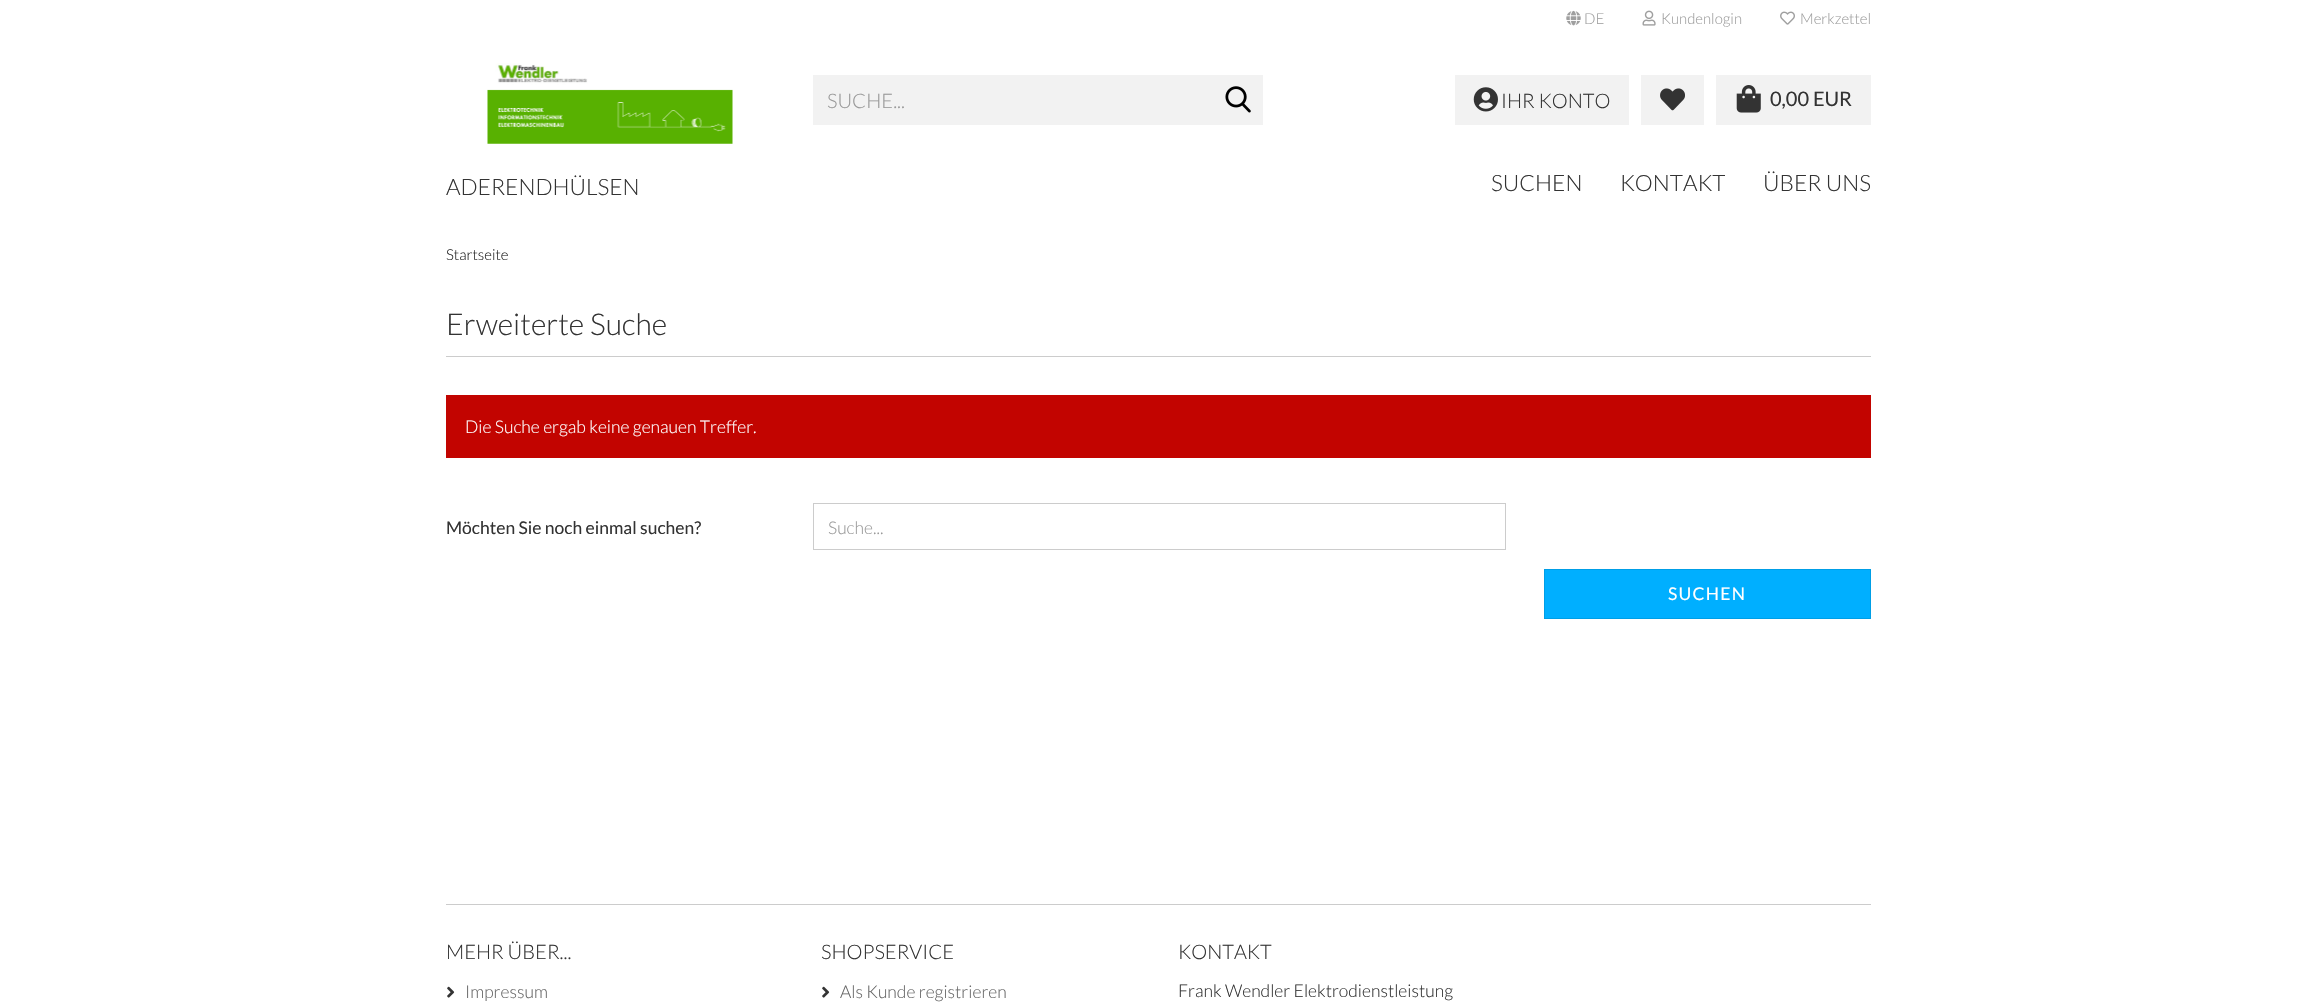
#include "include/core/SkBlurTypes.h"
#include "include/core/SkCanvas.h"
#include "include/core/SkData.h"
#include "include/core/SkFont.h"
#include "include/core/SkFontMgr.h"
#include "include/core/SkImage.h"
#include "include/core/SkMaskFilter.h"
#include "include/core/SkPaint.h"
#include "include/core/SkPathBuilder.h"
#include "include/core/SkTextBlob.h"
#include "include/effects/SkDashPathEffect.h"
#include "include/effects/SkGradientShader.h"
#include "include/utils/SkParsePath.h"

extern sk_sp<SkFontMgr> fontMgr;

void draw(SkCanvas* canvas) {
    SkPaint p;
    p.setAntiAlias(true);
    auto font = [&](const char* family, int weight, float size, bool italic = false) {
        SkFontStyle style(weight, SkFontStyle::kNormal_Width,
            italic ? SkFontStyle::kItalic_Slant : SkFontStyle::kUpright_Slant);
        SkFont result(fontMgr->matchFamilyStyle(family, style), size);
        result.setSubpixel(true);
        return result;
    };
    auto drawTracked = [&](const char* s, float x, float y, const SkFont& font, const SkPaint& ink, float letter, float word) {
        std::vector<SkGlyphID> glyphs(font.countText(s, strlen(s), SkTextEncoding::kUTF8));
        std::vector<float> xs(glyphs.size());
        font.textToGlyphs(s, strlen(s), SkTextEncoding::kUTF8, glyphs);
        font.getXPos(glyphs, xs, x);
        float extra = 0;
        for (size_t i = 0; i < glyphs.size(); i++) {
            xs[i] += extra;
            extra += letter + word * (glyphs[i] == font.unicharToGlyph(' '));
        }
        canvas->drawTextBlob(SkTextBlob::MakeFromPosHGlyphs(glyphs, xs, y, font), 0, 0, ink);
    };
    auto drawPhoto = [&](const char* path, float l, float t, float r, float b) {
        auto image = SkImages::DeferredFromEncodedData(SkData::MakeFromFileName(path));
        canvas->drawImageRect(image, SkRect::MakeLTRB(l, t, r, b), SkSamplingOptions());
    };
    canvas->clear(0xFFFFFFFF);
    drawPhoto("media/1.png", 1566, 10, 1581, 26);
    auto font1 = font("Lato", 300, 15);
    p.setColor(0xFF9F9F9F);
    canvas->drawString("DE", 1584, 24, font1, p);
    drawPhoto("media/2.png", 1642, 10, 1656, 26);
    canvas->drawString("Kundenlogin", 1661, 24, font1, p);
    drawPhoto("media/3.png", 1780, 11, 1795, 25);
    canvas->drawString("Merkzettel", 1800, 24, font1, p);
    drawPhoto("media/4.png", 487, 63, 733, 144);
    p.setColor(0xFFF2F2F2);
    canvas->drawRect(SkRect::MakeLTRB(813, 75, 1263, 125), p);
    auto font2 = font("Lato", 300, 20);
    p.setColor(0xFF999999);
    canvas->drawString("SUCHE...", 827, 108, font2, p);
    drawPhoto("media/5.png", 1225, 86, 1251, 113);
    p.setColor(0xFFF2F2F2);
    canvas->drawRect(SkRect::MakeLTRB(1455, 75, 1629, 125), p);
    drawPhoto("media/6.png", 1473, 87, 1498, 112);
    p.setColor(0xFF333333);
    canvas->drawString("IHR KONTO", 1501, 108, font2, p);
    p.setColor(0xFFF2F2F2);
    canvas->drawRect(SkRect::MakeLTRB(1641, 75, 1704, 125), p);
    drawPhoto("media/7.png", 1660, 88, 1685, 111);
    canvas->drawRect(SkRect::MakeLTRB(1716, 75, 1871, 125), p);
    drawPhoto("media/8.png", 1736, 85, 1761, 113);
    auto font3 = font("Lato", 400, 20);
    p.setColor(0xFF333333);
    canvas->drawString("0,00 EUR", 1770, 106, font3, p);
    auto font4 = font("Lato", 300, 22.5f);
    {
        const struct { const char* s; float x, y; } items[] = {
            {"ADERENDHÜLSEN", 446, 195},
            {"SUCHEN", 1491, 191},
            {"KONTAKT", 1620, 191},
            {"ÜBER UNS", 1763, 191},
        };
        for (auto [s, x, y] : items) {
            canvas->drawString(s, x, y, font4, p);
        }
    }
    p.setColor(0xFF262626);
    canvas->drawString("Startseite", 446, 260, font1, p);
    p.setColor(0xFFCCCCCC);
    canvas->drawRect(SkRect::MakeLTRB(446, 356, 1871, 357), p);
    auto font5 = font("Lato", 300, 30);
    p.setColor(0xFF333333);
    canvas->drawString("Erweiterte Suche", 446, 335, font5, p);
    p.setColor(0xFFC20400);
    canvas->drawRect(SkRect::MakeLTRB(446, 395, 1871, 458), p);
    auto font6 = font("Lato", 300, 17.5f);
    p.setColor(0xFFFFFFFF);
    canvas->drawString("Die Suche ergab keine genauen Treffer.", 465, 433, font6, p);
    auto font7 = font("Lato", 400, 17.5f);
    p.setColor(0xFF333333);
    canvas->drawString("Möchten Sie noch einmal suchen?", 446, 534, font7, p);
    p.setStyle(SkPaint::kStroke_Style);
    p.setStrokeWidth(1);
    p.setColor(0xFFCCCCCC);
    canvas->drawRect(SkRect::MakeLTRB(813.5f, 503.5f, 1505.5f, 549.5f), p);
    p.setStyle(SkPaint::kFill_Style);
    p.setColor(0xFF999999);
    canvas->drawString("Suche...", 828, 534, font6, p);
    p.setColor(0xFF00AFFF);
    canvas->drawRect(SkRect::MakeLTRB(1544.5f, 569.5f, 1870.5f, 618.5f), p);
    p.setStyle(SkPaint::kStroke_Style);
    p.setColor(0xFF009EE6);
    canvas->drawRect(SkRect::MakeLTRB(1544.5f, 569.5f, 1870.5f, 618.5f), p);
    p.setStyle(SkPaint::kFill_Style);
    p.setColor(0xFFFFFFFF);
    drawTracked("SUCHEN", 1668, 600, font7, p, 1.25f, 0);
    p.setColor(0xFFCCCCCC);
    canvas->drawRect(SkRect::MakeLTRB(446, 904, 1871, 905), p);
    p.setColor(0xFF333333);
    canvas->drawString("MEHR ÜBER...", 446, 959, font2, p);
    drawPhoto("media/9.png", 447, 986, 455, 998);
    p.setColor(0xFF666666);
    canvas->drawString("Impressum", 465, 998, font6, p);
    p.setColor(0xFF333333);
    canvas->drawString("SHOPSERVICE", 821, 959, font2, p);
    drawPhoto("media/9.png", 822, 986, 830, 998);
    p.setColor(0xFF666666);
    canvas->drawString("Als Kunde registrieren", 840, 998, font6, p);
    p.setColor(0xFF333333);
    canvas->drawString("KONTAKT", 1178, 959, font2, p);
    canvas->drawString("Frank Wendler Elektrodienstleistung", 1178, 997, font6, p);
}
